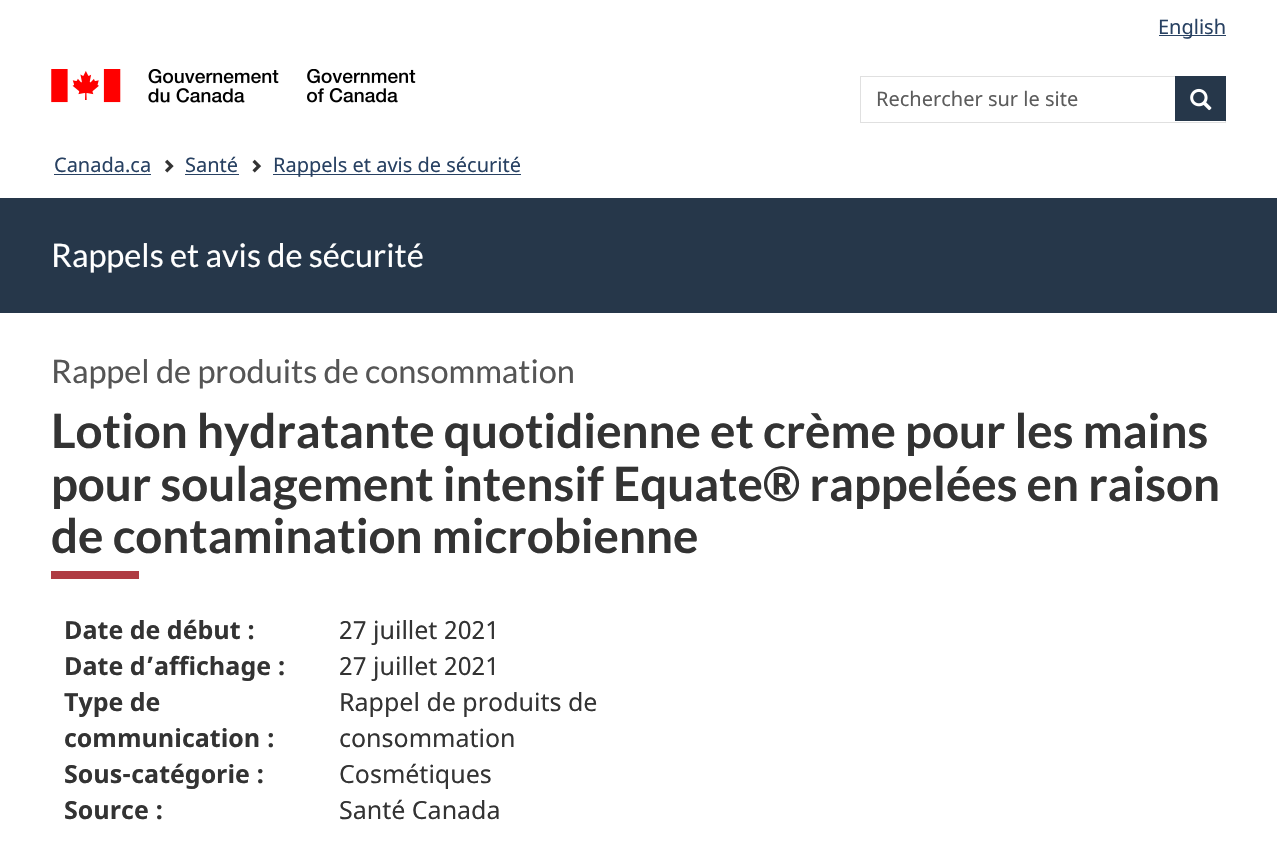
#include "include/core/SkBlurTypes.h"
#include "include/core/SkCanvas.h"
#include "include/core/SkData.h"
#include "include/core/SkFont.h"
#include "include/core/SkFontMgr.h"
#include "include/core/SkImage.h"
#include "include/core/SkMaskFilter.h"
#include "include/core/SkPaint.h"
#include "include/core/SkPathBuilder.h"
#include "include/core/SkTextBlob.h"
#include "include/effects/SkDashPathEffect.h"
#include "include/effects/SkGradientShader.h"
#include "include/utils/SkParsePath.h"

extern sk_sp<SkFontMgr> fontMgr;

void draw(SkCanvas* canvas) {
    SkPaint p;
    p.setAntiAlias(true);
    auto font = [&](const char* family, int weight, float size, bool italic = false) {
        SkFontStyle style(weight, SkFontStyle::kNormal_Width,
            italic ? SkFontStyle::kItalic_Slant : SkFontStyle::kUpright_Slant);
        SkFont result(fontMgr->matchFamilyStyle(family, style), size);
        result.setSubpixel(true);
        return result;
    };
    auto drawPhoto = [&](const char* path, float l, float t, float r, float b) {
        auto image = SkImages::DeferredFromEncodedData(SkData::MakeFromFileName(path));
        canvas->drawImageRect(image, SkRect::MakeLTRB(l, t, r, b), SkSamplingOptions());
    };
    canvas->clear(0xFFFFFFFF);
    p.setColor(0xFF284162);
    canvas->drawRect(SkRect::MakeLTRB(1159, 35, 1226, 36), p);
    auto font1 = font("Noto Sans", 400, 20);
    canvas->drawString("English", 1158, 34, font1, p);
    drawPhoto("media/1.png", 51, 69, 416, 103);
    p.setStyle(SkPaint::kStroke_Style);
    p.setStrokeWidth(1);
    p.setColor(0xFFE0E0E0);
    canvas->drawRect(SkRect::MakeLTRB(860.5f, 76.5f, 1225.5f, 122.5f), p);
    p.setStyle(SkPaint::kFill_Style);
    p.setColor(0xFF5C5C5C);
    canvas->drawString("Rechercher sur le site", 876, 106, font1, p);
    p.setColor(0xFF26374A);
    canvas->drawRect(SkRect::MakeLTRB(1175, 76, 1226, 121), p);
    drawPhoto("media/2.png", 1190, 88, 1212, 111);
    p.setColor(0xFF284162);
    canvas->drawString("Canada.ca", 54, 172, font1, p);
    canvas->drawRect(SkRect::MakeLTRB(54, 174, 151, 175), p);
    drawPhoto("media/3.png", 165, 159, 174, 173);
    canvas->drawString("Santé", 185, 172, font1, p);
    canvas->drawRect(SkRect::MakeLTRB(185, 174, 239, 175), p);
    drawPhoto("media/4.png", 252, 159, 262, 173);
    canvas->drawRect(SkRect::MakeLTRB(273, 174, 521, 175), p);
    canvas->drawString("Rappels et avis de sécurité", 273, 172, font1, p);
    p.setColor(0xFF26374A);
    canvas->drawRect(SkRect::MakeLTRB(0, 198, 1277, 313), p);
    auto font2 = font("Lato", 400, 32.5f);
    p.setColor(0xFFFFFFFF);
    canvas->drawString("Rappels et avis de sécurité", 51, 267, font2, p);
    p.setColor(0xFF555555);
    canvas->drawString("Rappel de produits de consommation", 51, 383, font2, p);
    p.setColor(0xFFAF3C43);
    canvas->drawRect(SkRect::MakeLTRB(51, 571, 139, 579), p);
    auto font3 = font("Lato", 700, 47.5f);
    p.setColor(0xFF333333);
    {
        const struct { const char* s; float x, y; } items[] = {
            {"Lotion hydratante quotidienne et crème pour les mains", 51, 448},
            {"pour soulagement intensif Equate® rappelées en raison", 51, 501},
            {"de contamination microbienne", 51, 553},
        };
        for (auto [s, x, y] : items) {
            canvas->drawString(s, x, y, font3, p);
        }
    }
    auto font4 = font("Noto Sans", 700, 25);
    canvas->drawString("Date de début :", 64, 639, font4, p);
    auto font5 = font("Noto Sans", 400, 25);
    canvas->drawString("27 juillet 2021", 339, 639, font5, p);
    canvas->drawString("Date d’affichage :", 64, 675, font4, p);
    canvas->drawString("27 juillet 2021", 339, 675, font5, p);
    canvas->drawString("Type de", 64, 711, font4, p);
    canvas->drawString("communication :", 64, 747, font4, p);
    canvas->drawString("Rappel de produits de", 339, 711, font5, p);
    canvas->drawString("consommation", 339, 747, font5, p);
    canvas->drawString("Sous-catégorie :", 64, 783, font4, p);
    canvas->drawString("Cosmétiques", 339, 783, font5, p);
    canvas->drawString("Source :", 64, 819, font4, p);
    canvas->drawString("Santé Canada", 339, 819, font5, p);
}
